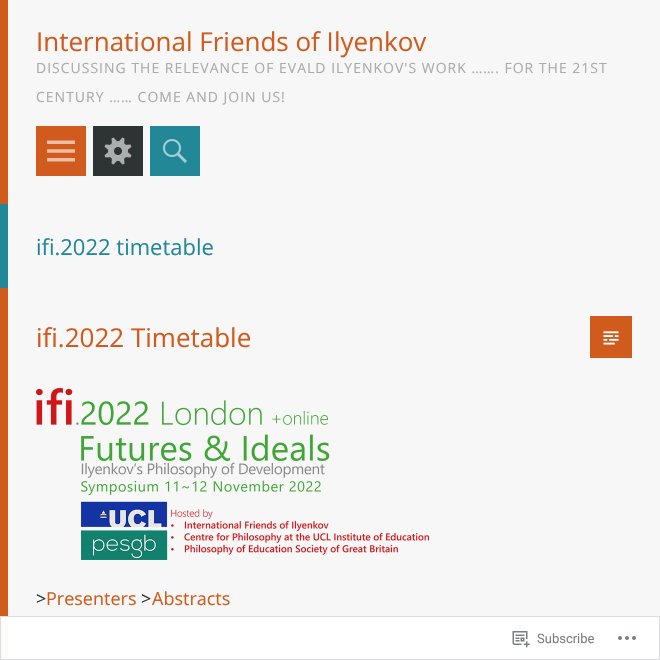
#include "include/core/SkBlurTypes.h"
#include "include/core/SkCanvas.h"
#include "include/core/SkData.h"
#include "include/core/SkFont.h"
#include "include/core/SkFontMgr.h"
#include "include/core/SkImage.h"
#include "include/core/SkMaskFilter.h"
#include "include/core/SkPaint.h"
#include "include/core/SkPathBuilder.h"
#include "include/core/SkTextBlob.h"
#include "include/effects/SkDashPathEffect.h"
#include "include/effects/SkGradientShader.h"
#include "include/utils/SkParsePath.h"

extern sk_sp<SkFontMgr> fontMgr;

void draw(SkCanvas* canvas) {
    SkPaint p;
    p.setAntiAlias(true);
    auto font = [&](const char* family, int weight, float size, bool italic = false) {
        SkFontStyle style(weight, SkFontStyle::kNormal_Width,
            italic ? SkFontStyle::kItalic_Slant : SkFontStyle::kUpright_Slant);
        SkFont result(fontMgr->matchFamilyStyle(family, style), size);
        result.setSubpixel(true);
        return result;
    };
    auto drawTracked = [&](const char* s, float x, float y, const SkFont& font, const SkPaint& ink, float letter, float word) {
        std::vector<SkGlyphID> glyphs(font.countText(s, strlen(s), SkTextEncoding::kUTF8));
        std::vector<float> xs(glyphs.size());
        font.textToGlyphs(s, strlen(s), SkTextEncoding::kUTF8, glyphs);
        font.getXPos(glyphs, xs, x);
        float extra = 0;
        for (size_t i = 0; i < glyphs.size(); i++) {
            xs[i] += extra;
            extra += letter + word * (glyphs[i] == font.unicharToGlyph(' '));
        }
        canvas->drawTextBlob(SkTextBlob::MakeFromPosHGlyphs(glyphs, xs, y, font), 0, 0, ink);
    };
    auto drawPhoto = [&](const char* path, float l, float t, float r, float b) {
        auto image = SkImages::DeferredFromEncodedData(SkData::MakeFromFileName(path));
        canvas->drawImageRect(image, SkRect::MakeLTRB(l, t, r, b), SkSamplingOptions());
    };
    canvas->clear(0xFFF7F7F7);
    p.setColor(0xFFFFFFFF);
    canvas->drawRect(SkRect::MakeLTRB(8, 616, 660, 660), p);
    p.setColor(0xFFD05B1C);
    canvas->drawRect(SkRect::MakeLTRB(0, 0, 8, 204), p);
    auto font1 = font("Open Sans", 400, 26);
    canvas->drawString("International Friends of Ilyenkov", 36, 51, font1, p);
    auto font2 = font("Open Sans", 400, 14);
    p.setColor(0xFFABABAB);
    drawTracked("DISCUSSING THE RELEVANCE OF EVALD ILYENKOV'S WORK ……. FOR THE 21ST", 36, 73, font2, p, 1, 0);
    drawTracked("CENTURY …… COME AND JOIN US!", 36, 102, font2, p, 1, 0);
    p.setColor(0xFFD05B1C);
    canvas->drawRect(SkRect::MakeLTRB(36, 126, 86, 176), p);
    drawPhoto("media/1.png", 47, 140, 75, 162);
    p.setColor(0xFF2D3433);
    canvas->drawRect(SkRect::MakeLTRB(93, 126, 143, 176), p);
    drawPhoto("media/2.png", 104, 137, 132, 165);
    p.setColor(0xFF228897);
    canvas->drawRect(SkRect::MakeLTRB(150, 126, 200, 176), p);
    drawPhoto("media/3.png", 163, 139, 187, 163);
    canvas->drawRect(SkRect::MakeLTRB(0, 204, 8, 288), p);
    auto font3 = font("Open Sans", 400, 22);
    canvas->drawString("ifi.2022 timetable", 36, 255, font3, p);
    p.setColor(0xFFD05B1C);
    canvas->drawRect(SkRect::MakeLTRB(0, 288, 8, 616), p);
    p.setColor(0xFFFEFCFA);
    canvas->drawRect(SkRect::MakeLTRB(0, 616, 8, 660), p);
    p.setColor(0xFFD05B1C);
    canvas->drawString("ifi.2022 Timetable", 36, 347, font1, p);
    canvas->drawRect(SkRect::MakeLTRB(590, 316, 632, 358), p);
    drawPhoto("media/4.png", 603, 331, 619, 345);
    drawPhoto("media/5.png", 36, 388, 429, 560);
    auto font4 = font("Open Sans", 400, 18);
    p.setColor(0xFF2D3433);
    canvas->drawString(">", 36, 605, font4, p);
    p.setColor(0xFFD05B1C);
    canvas->drawString("Presenters", 46, 605, font4, p);
    p.setColor(0xFF2D3433);
    canvas->drawString(">", 141, 605, font4, p);
    p.setColor(0xFFD05B1C);
    canvas->drawString("Abstracts", 152, 605, font4, p);
    p.setStyle(SkPaint::kStroke_Style);
    p.setStrokeWidth(1);
    p.setColor(0xFADCDCDE);
    canvas->drawRect(SkRect::MakeLTRB(0.5f, 616.5f, 659.5f, 659.5f), p);
    drawPhoto("media/6.png", 512, 631, 530, 648);
    auto font5 = font("Roboto", 400, 13);
    p.setStyle(SkPaint::kFill_Style);
    p.setColor(0xFF7B7E84);
    canvas->drawString("Subscribe", 537, 643, font5, p);
    drawPhoto("media/7.png", 618, 636, 636, 640);
}
